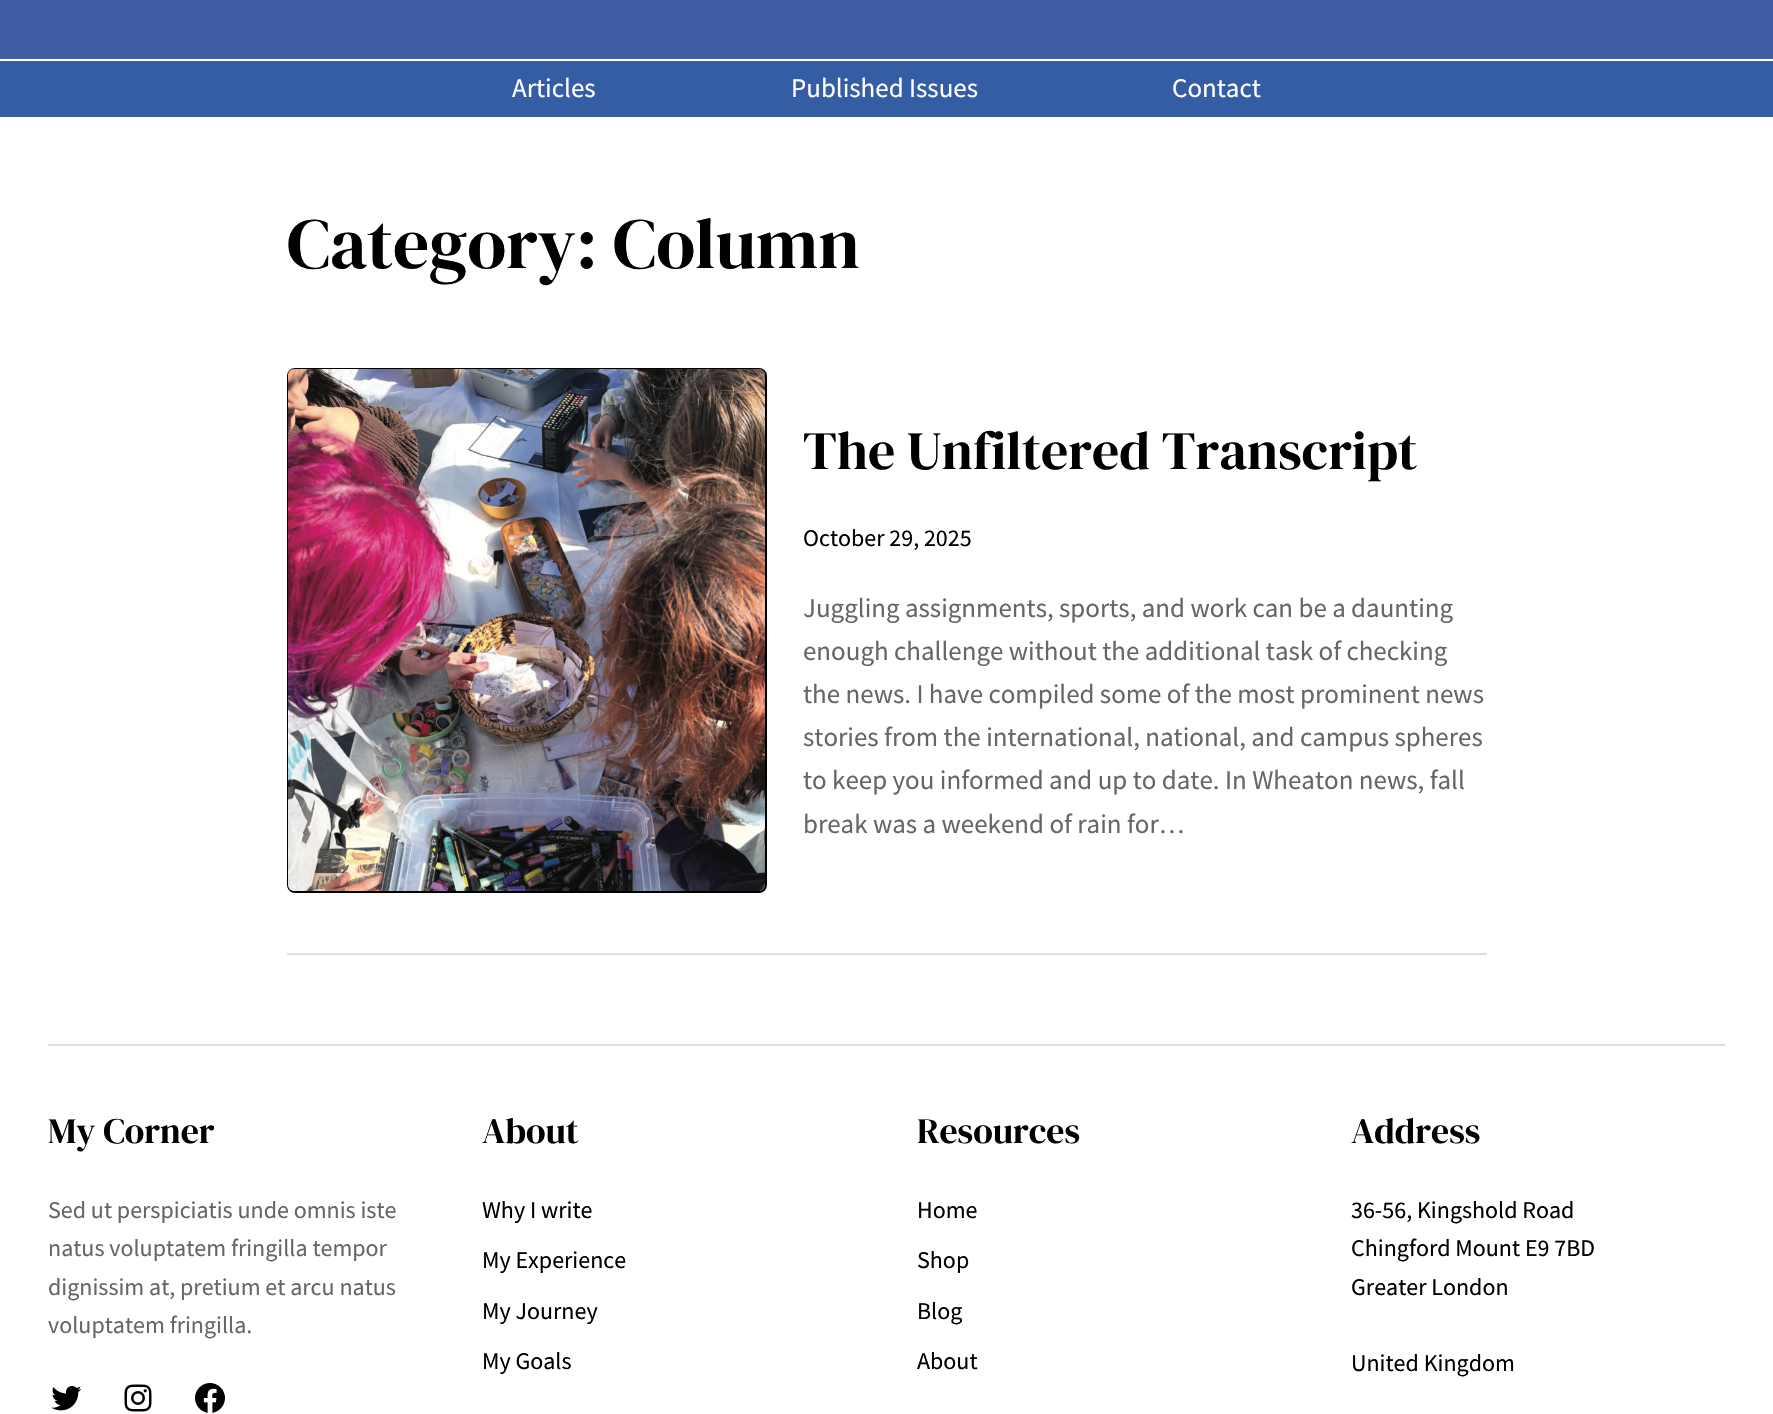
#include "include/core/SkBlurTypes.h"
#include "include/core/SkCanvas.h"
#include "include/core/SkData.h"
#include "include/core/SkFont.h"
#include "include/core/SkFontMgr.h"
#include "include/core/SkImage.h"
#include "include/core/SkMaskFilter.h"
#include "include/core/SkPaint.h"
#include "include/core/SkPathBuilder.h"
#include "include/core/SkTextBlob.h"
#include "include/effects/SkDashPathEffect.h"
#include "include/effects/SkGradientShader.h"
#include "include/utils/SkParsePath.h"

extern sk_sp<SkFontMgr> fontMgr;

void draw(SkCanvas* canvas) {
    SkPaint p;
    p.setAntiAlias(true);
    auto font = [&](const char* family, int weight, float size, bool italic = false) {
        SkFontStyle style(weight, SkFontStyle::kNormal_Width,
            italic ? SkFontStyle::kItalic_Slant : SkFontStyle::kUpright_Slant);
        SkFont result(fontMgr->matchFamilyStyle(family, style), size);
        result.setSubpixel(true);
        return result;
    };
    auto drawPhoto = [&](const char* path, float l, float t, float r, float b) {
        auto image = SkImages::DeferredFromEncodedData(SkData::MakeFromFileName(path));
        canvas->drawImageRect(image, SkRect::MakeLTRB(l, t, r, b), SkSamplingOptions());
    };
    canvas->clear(0xFFFFFFFF);
    p.setColor(0xFF3E5DA3);
    canvas->drawRect(SkRect::MakeLTRB(0, 0, 1773, 59), p);
    p.setColor(0xFF345DA3);
    canvas->drawRect(SkRect::MakeLTRB(0, 61, 1773, 117), p);
    auto font1 = font("Source Sans Pro", 400, 26.95f);
    p.setColor(0xFFFFFFFF);
    {
        const struct { const char* s; float x, y; } items[] = {
            {"Articles", 512, 97},
            {"Published Issues", 791, 97},
            {"Contact", 1172, 97},
        };
        for (auto [s, x, y] : items) {
            canvas->drawString(s, x, y, font1, p);
        }
    }
    auto font2 = font("DM Serif Display", 400, 71.5f);
    p.setColor(0xFF000000);
    canvas->drawString("Category: Column", 287, 268, font2, p);
    p.setColor(0xFFDEDEDE);
    canvas->drawRect(SkRect::MakeLTRB(287, 953, 1487, 955), p);
    p.setStyle(SkPaint::kStroke_Style);
    p.setStrokeWidth(2);
    p.setColor(0xFF000000);
    canvas->drawRoundRect(SkRect::MakeLTRB(288, 369, 766, 892), 7, 7, p);
    drawPhoto("media/1.png", 288, 369, 765, 891);
    auto font3 = font("DM Serif Display", 400, 53.75f);
    p.setStyle(SkPaint::kFill_Style);
    canvas->drawString("The Unfiltered Transcript", 803, 469, font3, p);
    auto font4 = font("Source Sans Pro", 400, 24);
    canvas->drawString("October 29, 2025", 803, 546, font4, p);
    p.setColor(0xFF666666);
    {
        const struct { const char* s; float x, y; } items[] = {
            {"Juggling assignments, sports, and work can be a daunting", 803, 617},
            {"enough challenge without the additional task of checking", 803, 660},
            {"the news. I have compiled some of the most prominent news", 803, 703},
            {"stories from the international, national, and campus spheres", 803, 746},
            {"to keep you informed and up to date. In Wheaton news, fall", 803, 789},
            {"break was a weekend of rain for…", 803, 833},
        };
        for (auto [s, x, y] : items) {
            canvas->drawString(s, x, y, font1, p);
        }
    }
    p.setColor(0xFFDEDEDE);
    canvas->drawRect(SkRect::MakeLTRB(48, 1044, 1725, 1046), p);
    auto font5 = font("DM Serif Display", 400, 35.75f);
    p.setColor(0xFF000000);
    canvas->drawString("My Corner", 48, 1143, font5, p);
    p.setColor(0xFF666666);
    {
        const struct { const char* s; float x, y; } items[] = {
            {"Sed ut perspiciatis unde omnis iste", 48, 1218},
            {"natus voluptatem fringilla tempor", 48, 1256},
            {"dignissim at, pretium et arcu natus", 48, 1295},
            {"voluptatem fringilla.", 48, 1333},
        };
        for (auto [s, x, y] : items) {
            canvas->drawString(s, x, y, font4, p);
        }
    }
    drawPhoto("media/2.png", 51, 1386, 82, 1411);
    drawPhoto("media/3.png", 124, 1384, 152, 1412);
    drawPhoto("media/4.png", 195, 1383, 225, 1413);
    p.setColor(0xFF000000);
    canvas->drawString("About", 482, 1143, font5, p);
    {
        const struct { const char* s; float x, y; } items[] = {
            {"Why I write", 482, 1218},
            {"My Experience", 482, 1268},
            {"My Journey", 482, 1319},
            {"My Goals", 482, 1369},
        };
        for (auto [s, x, y] : items) {
            canvas->drawString(s, x, y, font4, p);
        }
    }
    canvas->drawString("Resources", 917, 1143, font5, p);
    {
        const struct { const char* s; float x, y; } items[] = {
            {"Home", 917, 1218},
            {"Shop", 917, 1268},
            {"Blog", 917, 1319},
            {"About", 917, 1369},
        };
        for (auto [s, x, y] : items) {
            canvas->drawString(s, x, y, font4, p);
        }
    }
    canvas->drawString("Address", 1351, 1143, font5, p);
    {
        const struct { const char* s; float x, y; } items[] = {
            {"36-56, Kingshold Road", 1351, 1218},
            {"Chingford Mount E9 7BD", 1351, 1256},
            {"Greater London", 1351, 1295},
            {"United Kingdom", 1351, 1371},
        };
        for (auto [s, x, y] : items) {
            canvas->drawString(s, x, y, font4, p);
        }
    }
}
